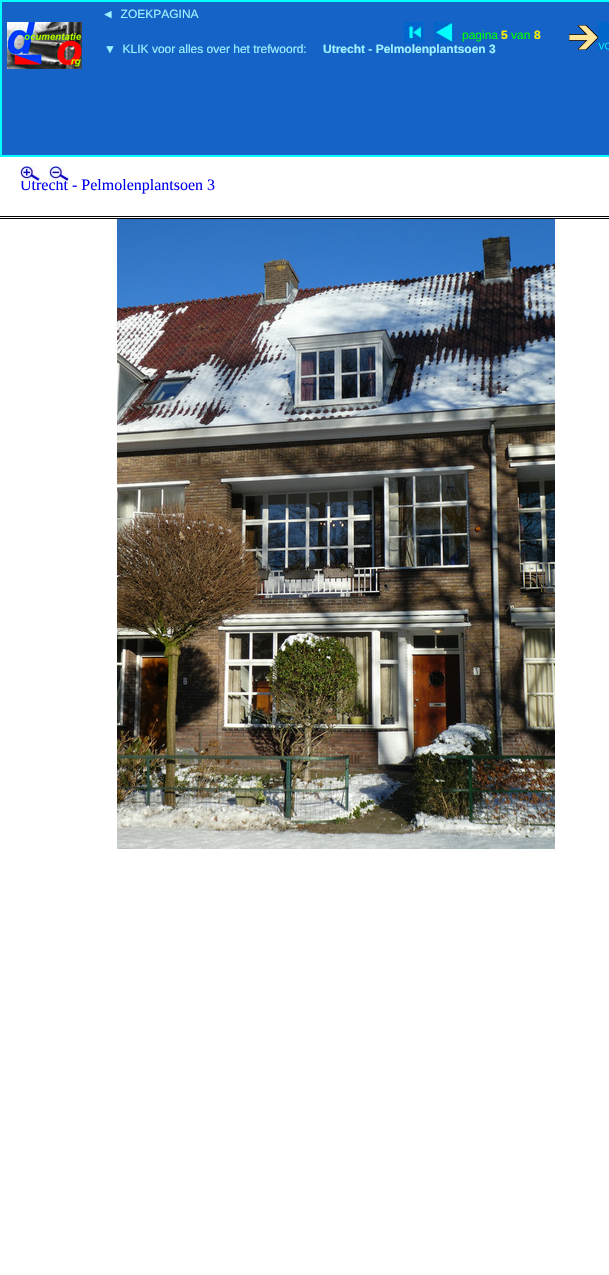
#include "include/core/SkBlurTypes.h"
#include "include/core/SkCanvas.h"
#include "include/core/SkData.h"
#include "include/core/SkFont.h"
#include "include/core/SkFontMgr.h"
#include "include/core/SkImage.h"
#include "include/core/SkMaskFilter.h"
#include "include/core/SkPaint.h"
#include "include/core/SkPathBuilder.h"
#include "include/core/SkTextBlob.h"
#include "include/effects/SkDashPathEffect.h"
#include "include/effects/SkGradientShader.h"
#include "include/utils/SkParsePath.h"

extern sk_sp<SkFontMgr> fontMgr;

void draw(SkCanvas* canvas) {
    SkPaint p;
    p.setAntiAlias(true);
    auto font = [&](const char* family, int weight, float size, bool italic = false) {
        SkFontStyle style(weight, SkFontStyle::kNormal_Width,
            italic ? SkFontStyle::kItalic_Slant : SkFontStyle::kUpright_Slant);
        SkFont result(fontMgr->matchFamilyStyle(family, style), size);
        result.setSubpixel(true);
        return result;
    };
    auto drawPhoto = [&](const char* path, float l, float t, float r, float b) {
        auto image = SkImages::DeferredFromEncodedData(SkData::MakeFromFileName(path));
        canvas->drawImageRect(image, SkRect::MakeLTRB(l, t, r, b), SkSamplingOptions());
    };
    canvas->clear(0xFFFFFFFF);
    p.setColor(0xFF1663C8);
    canvas->drawRect(SkRect::MakeLTRB(1, 1, 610, 156), p);
    p.setStyle(SkPaint::kStroke_Style);
    p.setStrokeWidth(2);
    p.setColor(0xFF00FFFF);
    canvas->drawRect(SkRect::MakeLTRB(1, 1, 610, 156), p);
    auto font1 = font("Liberation Sans", 400, 12);
    p.setStyle(SkPaint::kFill_Style);
    p.setColor(0xFF9DF2FF);
    canvas->drawString("◄  ZOEKPAGINA", 102, 18, font1, p);
    drawPhoto("media/1.png", 7, 22, 82, 69);
    drawPhoto("media/2.png", 404, 22, 424, 43);
    drawPhoto("media/3.png", 434, 22, 454, 43);
    p.setColor(0xFF00FF00);
    canvas->drawString("pagina", 462, 39, font1, p);
    auto font2 = font("Liberation Sans", 700, 12);
    p.setColor(0xFFFAF106);
    canvas->drawString("5", 501, 39, font2, p);
    p.setColor(0xFF00FF00);
    canvas->drawString("van", 511, 39, font1, p);
    p.setColor(0xFFFAF106);
    canvas->drawString("8", 534, 39, font2, p);
    drawPhoto("media/4.png", 569, 25, 598, 50);
    drawPhoto("media/5.png", 598, 22, 609, 50);
    p.setColor(0xFF9DF2FF);
    canvas->drawString("▼  KLIK voor alles over het trefwoord:", 104, 53, font1, p);
    canvas->drawString("Utrecht - Pelmolenplantsoen 3", 323, 53, font2, p);
    auto font3 = font("Liberation Serif", 400, 16);
    p.setColor(0xFF0000EE);
    canvas->drawString("Utrecht - Pelmolenplantsoen 3", 20, 190, font3, p);
    drawPhoto("media/6.png", 20, 166, 40, 181);
    drawPhoto("media/7.png", 49, 166, 69, 181);
    p.setColor(0xFF000000);
    canvas->drawRect(SkRect::MakeLTRB(0, 216, 609, 217), p);
    canvas->drawRect(SkRect::MakeLTRB(0, 218, 609, 219), p);
    drawPhoto("media/8.png", 117, 219, 555, 849);
}
